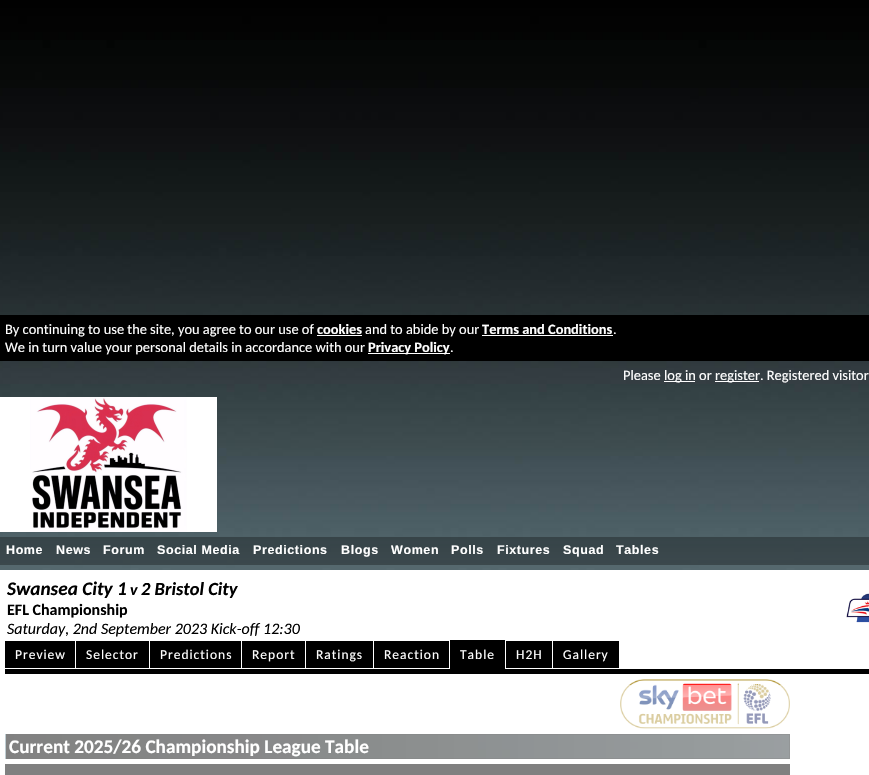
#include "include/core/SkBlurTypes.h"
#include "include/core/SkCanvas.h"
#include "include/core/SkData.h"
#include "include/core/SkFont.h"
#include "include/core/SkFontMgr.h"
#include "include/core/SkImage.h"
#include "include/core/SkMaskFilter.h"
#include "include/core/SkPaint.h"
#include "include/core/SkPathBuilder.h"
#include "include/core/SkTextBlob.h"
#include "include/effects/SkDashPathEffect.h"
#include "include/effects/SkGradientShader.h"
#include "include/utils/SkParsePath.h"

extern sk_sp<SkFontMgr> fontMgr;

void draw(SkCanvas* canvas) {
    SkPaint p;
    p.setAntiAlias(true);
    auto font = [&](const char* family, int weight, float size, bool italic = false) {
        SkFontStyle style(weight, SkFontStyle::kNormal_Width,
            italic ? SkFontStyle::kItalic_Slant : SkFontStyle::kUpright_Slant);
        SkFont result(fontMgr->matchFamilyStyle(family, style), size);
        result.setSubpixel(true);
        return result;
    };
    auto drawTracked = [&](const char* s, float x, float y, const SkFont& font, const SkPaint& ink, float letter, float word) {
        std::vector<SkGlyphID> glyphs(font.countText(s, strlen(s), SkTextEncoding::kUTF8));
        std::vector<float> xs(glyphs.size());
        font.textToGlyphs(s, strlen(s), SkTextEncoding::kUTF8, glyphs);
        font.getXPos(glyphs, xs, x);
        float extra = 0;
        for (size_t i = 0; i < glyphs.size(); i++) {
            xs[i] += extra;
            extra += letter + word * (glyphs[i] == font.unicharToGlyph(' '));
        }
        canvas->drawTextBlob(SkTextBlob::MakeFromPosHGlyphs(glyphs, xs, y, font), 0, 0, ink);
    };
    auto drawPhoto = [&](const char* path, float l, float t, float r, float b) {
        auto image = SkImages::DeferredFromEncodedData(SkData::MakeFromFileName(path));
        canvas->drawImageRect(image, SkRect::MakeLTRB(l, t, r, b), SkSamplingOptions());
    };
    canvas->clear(0xFFFFFFFF);
    drawPhoto("media/1.png", 0, 0, 869, 570);
    p.setColor(0xFF000000);
    canvas->drawRect(SkRect::MakeLTRB(0, 315, 869, 361), p);
    auto font1 = font("Carlito", 400, 14.4f);
    p.setColor(0xFFFFFFFF);
    canvas->drawString("By continuing to use the site, you agree to our use of", 5, 334, font1, p);
    auto font2 = font("Carlito", 700, 14.4f);
    canvas->drawString("cookies", 317, 334, font2, p);
    canvas->drawRect(SkRect::MakeLTRB(317, 335, 362, 336), p);
    canvas->drawString("and to abide by our", 365, 334, font1, p);
    canvas->drawString("Terms and Conditions", 482, 334, font2, p);
    canvas->drawRect(SkRect::MakeLTRB(482, 335, 613, 336), p);
    canvas->drawString(".", 613, 334, font1, p);
    canvas->drawString("We in turn value your personal details in accordance with our", 5, 352, font1, p);
    canvas->drawRect(SkRect::MakeLTRB(368, 353, 450, 354), p);
    canvas->drawString("Privacy Policy", 368, 352, font2, p);
    canvas->drawString(".", 450, 352, font1, p);
    canvas->drawString("Please", 623, 380, font1, p);
    canvas->drawRect(SkRect::MakeLTRB(664, 381, 695, 382), p);
    canvas->drawString("log in or", 664, 380, font1, p);
    canvas->drawRect(SkRect::MakeLTRB(715, 381, 759, 382), p);
    canvas->drawString("register. Registered visitor", 715, 380, font1, p);
    drawPhoto("media/2.png", 0, 397, 217, 532);
    p.setColor(0x4D000000);
    canvas->drawRect(SkRect::MakeLTRB(0, 537, 869, 565), p);
    auto font3 = font("Liberation Sans", 700, 12.5f);
    p.setColor(0xFFFFFFFF);
    {
        const struct { const char* s; float x, y; } items[] = {
            {"Home", 6, 554},
            {"News", 56, 554},
            {"Forum", 103, 554},
            {"Social Media", 157, 554},
            {"Predictions", 253, 554},
            {"Blogs", 341, 554},
            {"Women", 391, 554},
            {"Polls", 451, 554},
            {"Fixtures", 497, 554},
            {"Squad", 563, 554},
            {"Tables", 616, 554},
        };
        for (auto [s, x, y] : items) {
            drawTracked(s, x, y, font3, p, 0.6f, 0);
        }
    }
    auto font4 = font("Carlito", 700, 19.25f, true);
    p.setColor(0xFF000000);
    canvas->drawString("Swansea City 1", 7, 595, font4, p);
    auto font5 = font("Carlito", 700, 16, true);
    canvas->drawString("v", 130, 595, font5, p);
    auto font6 = font("Carlito", 700, 18.5f, true);
    canvas->drawString("2 Bristol City", 141, 595, font6, p);
    auto font7 = font("Carlito", 700, 16);
    canvas->drawString("EFL Championship", 7, 615, font7, p);
    auto font8 = font("Carlito", 400, 16, true);
    canvas->drawString("Saturday, 2nd September 2023 Kick-off 12:30", 7, 634, font8, p);
    drawPhoto("media/3.png", 846, 593, 869, 623);
    canvas->drawRect(SkRect::MakeLTRB(5, 641, 75, 668), p);
    auto font9 = font("Carlito", 400, 13.5f);
    p.setColor(0xFFFFFFFF);
    drawTracked("Preview", 15, 659, font9, p, 1, 0);
    p.setColor(0xFF000000);
    canvas->drawRect(SkRect::MakeLTRB(76, 641, 149, 668), p);
    p.setColor(0xFFFFFFFF);
    drawTracked("Selector", 86, 659, font9, p, 1, 0);
    p.setColor(0xFF000000);
    canvas->drawRect(SkRect::MakeLTRB(150, 641, 241, 668), p);
    p.setColor(0xFFFFFFFF);
    drawTracked("Predictions", 160, 659, font9, p, 1, 0);
    p.setColor(0xFF000000);
    canvas->drawRect(SkRect::MakeLTRB(242, 641, 305, 668), p);
    p.setColor(0xFFFFFFFF);
    drawTracked("Report", 252, 659, font9, p, 1, 0);
    p.setColor(0xFF000000);
    canvas->drawRect(SkRect::MakeLTRB(306, 641, 373, 668), p);
    p.setColor(0xFFFFFFFF);
    drawTracked("Ratings", 316, 659, font9, p, 1, 0);
    p.setColor(0xFF000000);
    canvas->drawRect(SkRect::MakeLTRB(374, 641, 449, 668), p);
    p.setColor(0xFFFFFFFF);
    drawTracked("Reaction", 384, 659, font9, p, 1, 0);
    p.setColor(0xFF000000);
    canvas->drawRect(SkRect::MakeLTRB(450, 640, 505, 669), p);
    p.setColor(0xFFFFFFFF);
    drawTracked("Table", 460, 659, font9, p, 1, 0);
    p.setColor(0xFF000000);
    canvas->drawRect(SkRect::MakeLTRB(506, 641, 552, 668), p);
    p.setColor(0xFFFFFFFF);
    drawTracked("H2H", 516, 659, font9, p, 1, 0);
    p.setColor(0xFF000000);
    canvas->drawRect(SkRect::MakeLTRB(553, 641, 619, 668), p);
    p.setColor(0xFFFFFFFF);
    drawTracked("Gallery", 563, 659, font9, p, 1, 0);
    p.setColor(0xFF000000);
    canvas->drawRect(SkRect::MakeLTRB(5, 669, 869, 674), p);
    drawPhoto("media/4.png", 620, 679, 790, 729);
    drawPhoto("media/5.png", 5, 734, 790, 759);
    p.setStyle(SkPaint::kStroke_Style);
    p.setStrokeWidth(1);
    p.setColor(0x4D000000);
    canvas->drawRect(SkRect::MakeLTRB(5.5f, 734.5f, 789.5f, 758.5f), p);
    auto font10 = font("Carlito", 700, 19.25f);
    p.setStyle(SkPaint::kFill_Style);
    p.setColor(0xFFFFFFFF);
    canvas->drawString("Current 2025/26 Championship League Table", 9, 753, font10, p);
    p.setColor(0xFF000000);
    canvas->drawRect(SkRect::MakeLTRB(5, 764, 790, 775), p);
    p.setColor(0x80FFFFFF);
    canvas->drawRect(SkRect::MakeLTRB(5, 685, 790, 775), p);
}
